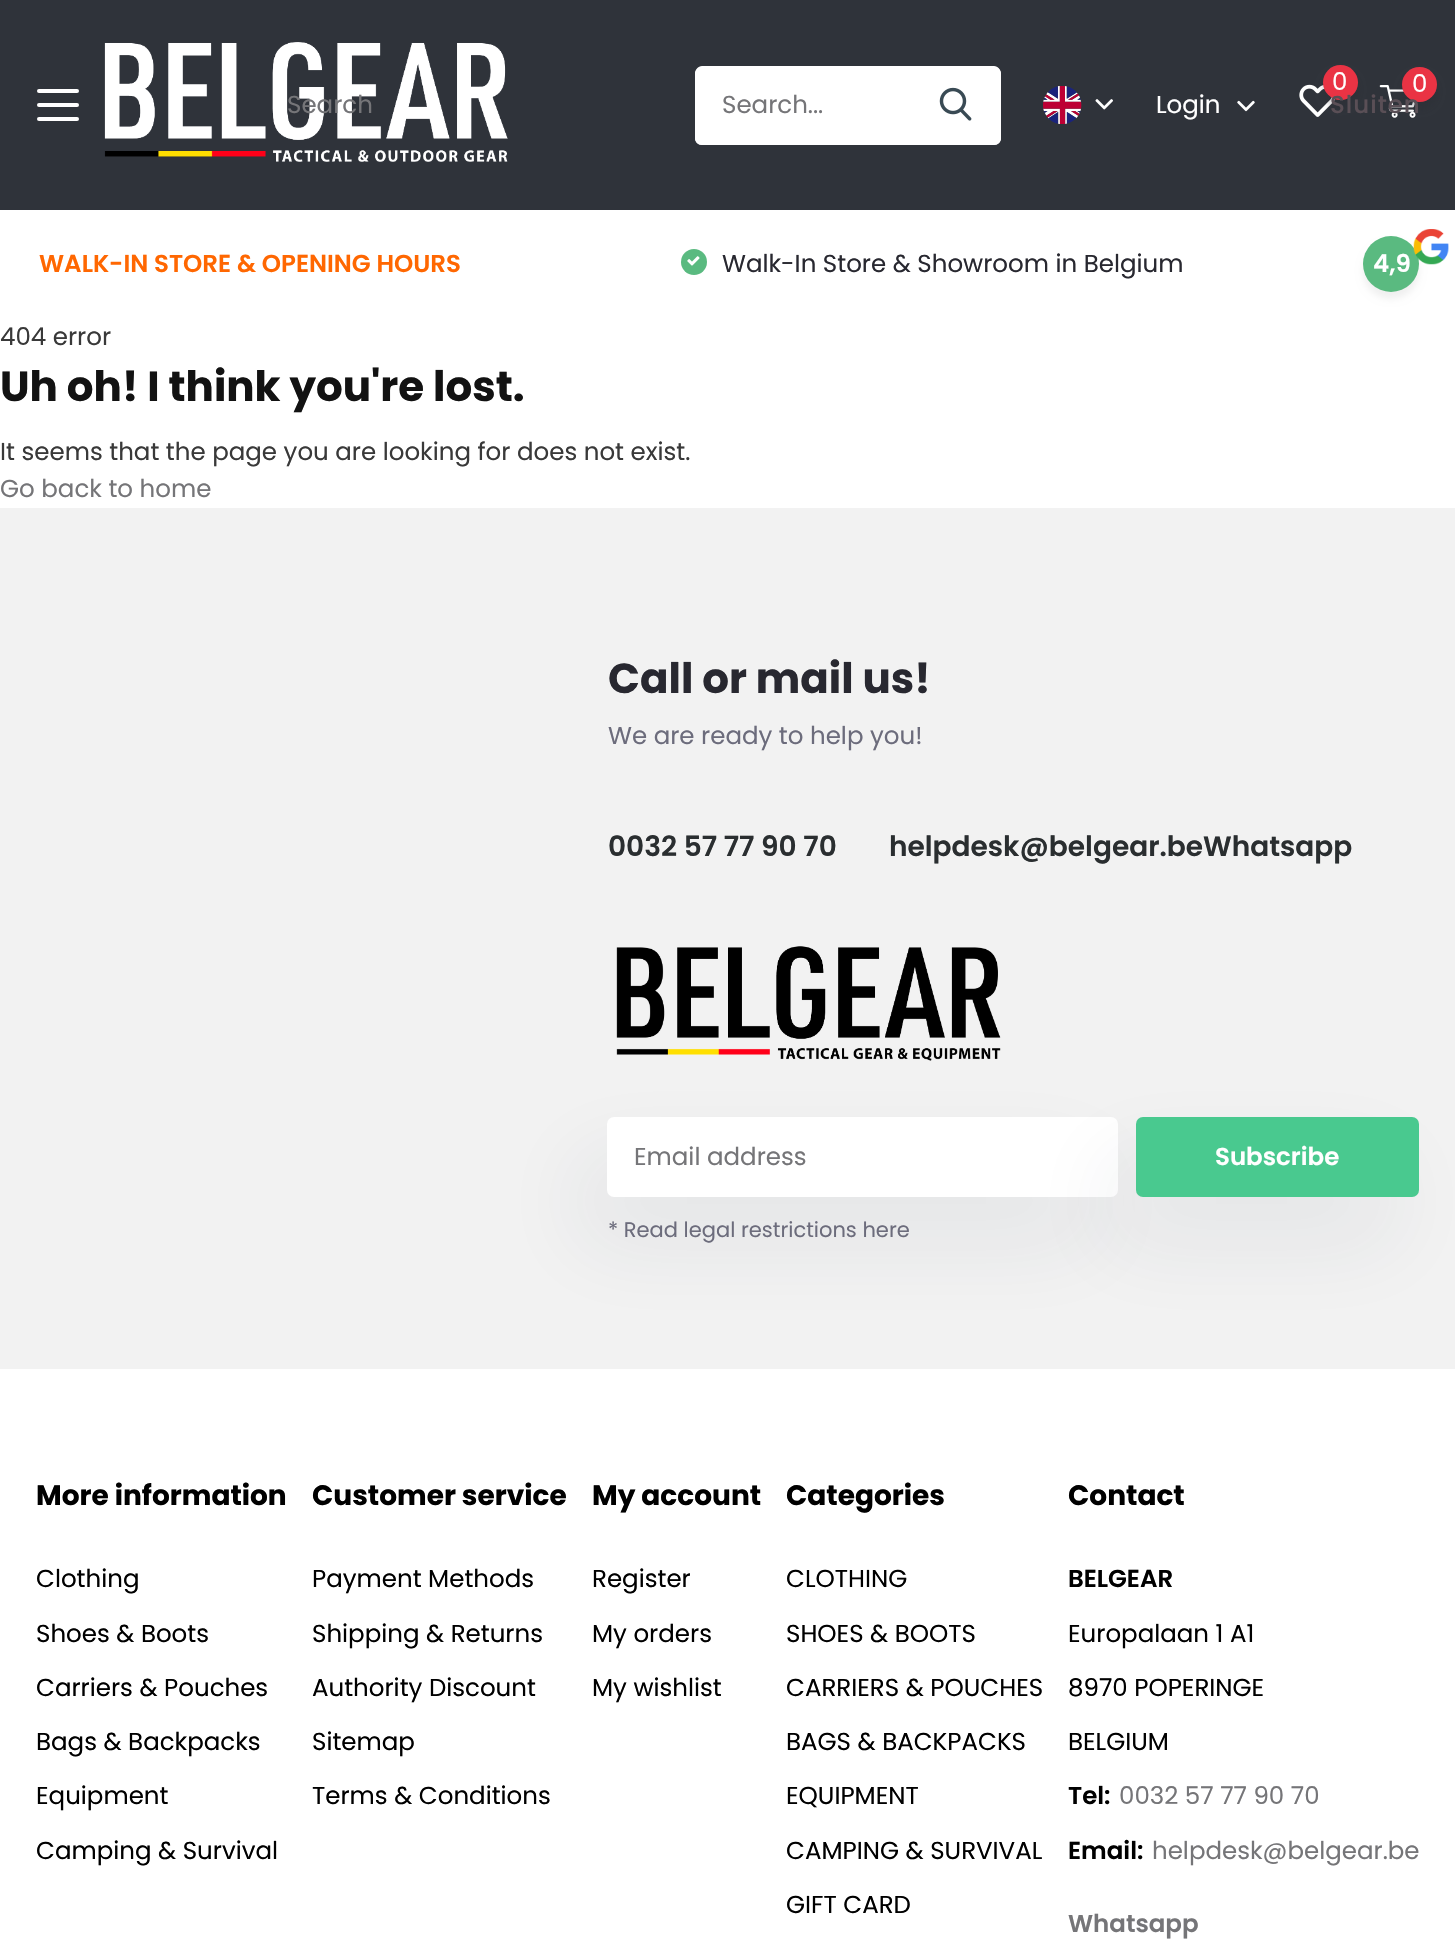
#include "include/core/SkBlurTypes.h"
#include "include/core/SkCanvas.h"
#include "include/core/SkData.h"
#include "include/core/SkFont.h"
#include "include/core/SkFontMgr.h"
#include "include/core/SkImage.h"
#include "include/core/SkMaskFilter.h"
#include "include/core/SkPaint.h"
#include "include/core/SkPathBuilder.h"
#include "include/core/SkTextBlob.h"
#include "include/effects/SkDashPathEffect.h"
#include "include/effects/SkGradientShader.h"
#include "include/utils/SkParsePath.h"

extern sk_sp<SkFontMgr> fontMgr;

void draw(SkCanvas* canvas) {
    SkPaint p;
    p.setAntiAlias(true);
    auto font = [&](const char* family, int weight, float size, bool italic = false) {
        SkFontStyle style(weight, SkFontStyle::kNormal_Width,
            italic ? SkFontStyle::kItalic_Slant : SkFontStyle::kUpright_Slant);
        SkFont result(fontMgr->matchFamilyStyle(family, style), size);
        result.setSubpixel(true);
        return result;
    };
    auto drawTracked = [&](const char* s, float x, float y, const SkFont& font, const SkPaint& ink, float letter, float word) {
        std::vector<SkGlyphID> glyphs(font.countText(s, strlen(s), SkTextEncoding::kUTF8));
        std::vector<float> xs(glyphs.size());
        font.textToGlyphs(s, strlen(s), SkTextEncoding::kUTF8, glyphs);
        font.getXPos(glyphs, xs, x);
        float extra = 0;
        for (size_t i = 0; i < glyphs.size(); i++) {
            xs[i] += extra;
            extra += letter + word * (glyphs[i] == font.unicharToGlyph(' '));
        }
        canvas->drawTextBlob(SkTextBlob::MakeFromPosHGlyphs(glyphs, xs, y, font), 0, 0, ink);
    };
    auto drawPhoto = [&](const char* path, float l, float t, float r, float b) {
        auto image = SkImages::DeferredFromEncodedData(SkData::MakeFromFileName(path));
        canvas->drawImageRect(image, SkRect::MakeLTRB(l, t, r, b), SkSamplingOptions());
    };
    canvas->clear(0xFFFFFFFF);
    p.setColor(0xFF2F333A);
    canvas->drawRect(SkRect::MakeLTRB(0, 0, 1455, 210), p);
    p.setColor(0xFFFFFFFF);
    canvas->drawRoundRect(SkRect::MakeLTRB(37, 89, 79, 93), 2, 2, p);
    canvas->drawRoundRect(SkRect::MakeLTRB(37, 103, 79, 107), 2, 2, p);
    canvas->drawRoundRect(SkRect::MakeLTRB(37, 117, 79, 121), 2, 2, p);
    drawPhoto("media/1.png", 104, 42, 508, 162);
    drawPhoto("media/2.png", 1299, 84, 1335, 117);
    p.setColor(0x40282830);
    p.setMaskFilter(SkMaskFilter::MakeBlur(kNormal_SkBlurStyle, 3.5f));
    canvas->drawRoundRect(SkRect::MakeLTRB(1323, 72, 1358, 107), 17.5f, 17.5f, p);
    p.setMaskFilter(nullptr);
    p.setColor(0xFFEA3344);
    canvas->drawCircle(1340.5f, 82.5f, 17.5f, p);
    auto font1 = font("Poppins", 400, 24.5f);
    p.setColor(0xFFFFFFFF);
    canvas->drawString("0", 1332, 90, font1, p);
    drawPhoto("media/3.png", 1379, 85, 1416, 118);
    p.setColor(0x40282830);
    p.setMaskFilter(SkMaskFilter::MakeBlur(kNormal_SkBlurStyle, 3.5f));
    canvas->drawRoundRect(SkRect::MakeLTRB(1402, 74, 1437, 109), 17.5f, 17.5f, p);
    p.setMaskFilter(nullptr);
    p.setColor(0xFFEA3344);
    canvas->drawCircle(1419.5f, 84.5f, 17.5f, p);
    p.setColor(0xFFFFFFFF);
    canvas->drawString("0", 1412, 92, font1, p);
    canvas->drawPath(SkPathBuilder().moveTo(702, 67).lineTo(914, 67).lineTo(914, 145).lineTo(702, 145).cubicTo(698, 145, 695, 142, 695, 138).lineTo(695, 74).cubicTo(695, 70, 698, 67, 702, 67).close().detach(), p);
    canvas->drawPath(SkPathBuilder(SkPathFillType::kEvenOdd).moveTo(702, 66).lineTo(914, 66).lineTo(914, 145).lineTo(702, 145).cubicTo(698, 145, 695, 142, 695, 138).lineTo(695, 74).cubicTo(695, 70, 698, 66, 702, 66).close().moveTo(702, 68).lineTo(914, 68).lineTo(914, 144).lineTo(702, 144).cubicTo(699, 144, 696, 141, 696, 138).lineTo(696, 74).cubicTo(696, 71, 699, 68, 702, 68).close().detach(), p);
    p.setColor(0xFF757578);
    canvas->drawString("Search...", 722, 113, font1, p);
    p.setColor(0xFFFFFFFF);
    canvas->drawPath(SkPathBuilder().moveTo(914, 67).lineTo(994, 67).cubicTo(998, 67, 1001, 70, 1001, 74).lineTo(1001, 138).cubicTo(1001, 142, 998, 145, 994, 145).lineTo(914, 145).close().detach(), p);
    canvas->drawPath(SkPathBuilder(SkPathFillType::kEvenOdd).moveTo(914, 66).lineTo(994, 66).cubicTo(998, 66, 1001, 70, 1001, 74).lineTo(1001, 138).cubicTo(1001, 142, 998, 145, 994, 145).lineTo(914, 145).close().moveTo(914, 68).lineTo(994, 68).cubicTo(997, 68, 999, 71, 999, 74).lineTo(999, 138).cubicTo(999, 141, 997, 144, 994, 144).lineTo(914, 144).close().detach(), p);
    drawPhoto("media/4.png", 939, 87, 972, 121);
    drawPhoto("media/5.png", 1043, 86, 1082, 124);
    drawPhoto("media/6.png", 1095, 99, 1113, 110);
    canvas->drawString("Login", 1156, 113, font1, p);
    drawPhoto("media/7.png", 1237, 100, 1255, 112);
    p.setColor(0xFF757578);
    canvas->drawString("Search", 287, 113, font1, p);
    auto font2 = font("Poppins", 500, 24.5f);
    p.setColor(0xFF5A4F56);
    drawTracked("Sluiten", 1330, 113, font2, p, 1, 0);
    auto font3 = font("Poppins", 600, 24.5f);
    p.setColor(0xFFFF6701);
    canvas->drawString("WALK-IN STORE & OPENING HOURS", 39, 272, font3, p);
    p.setColor(0xFF5ABA80);
    canvas->drawCircle(694, 262, 13, p);
    drawPhoto("media/8.png", 687, 256, 700, 266);
    p.setColor(0xFF282830);
    canvas->drawString("Walk-In Store & Showroom in Belgium", 722, 272, font1, p);
    p.setColor(0x0F000000);
    p.setMaskFilter(SkMaskFilter::MakeBlur(kNormal_SkBlurStyle, 3.5f));
    canvas->drawRoundRect(SkRect::MakeLTRB(1363, 243, 1419, 299), 28, 28, p);
    p.setMaskFilter(nullptr);
    p.setColor(0xFF5ABA80);
    canvas->drawCircle(1391, 264, 28, p);
    p.setColor(0xFFFFFFFF);
    canvas->drawString("4,9", 1373, 272, font3, p);
    drawPhoto("media/9.png", 1413, 229, 1449, 265);
    p.setColor(0xFF393939);
    canvas->drawString("404 error", 0, 345, font1, p);
    auto font4 = font("Poppins", 700, 42);
    p.setColor(0xFF121212);
    canvas->drawString("Uh oh! I think you're lost.", 0, 401, font4, p);
    p.setColor(0xFF393939);
    canvas->drawString("It seems that the page you are looking for does not exist.", 0, 460, font1, p);
    p.setColor(0xFF757578);
    canvas->drawString("Go back to home", 0, 497, font1, p);
    p.setColor(0xFFF2F2F2);
    canvas->drawRect(SkRect::MakeLTRB(0, 508, 1455, 1369), p);
    p.setColor(0xFF282830);
    canvas->drawString("Call or mail us!", 608, 693, font4, p);
    p.setColor(0xFF6C6C7C);
    canvas->drawString("We are ready to help you!", 608, 744, font1, p);
    auto font5 = font("Poppins", 600, 28);
    p.setColor(0xFF2A2E30);
    canvas->drawString("0032 57 77 90 70", 608, 856, font5, p);
    canvas->drawString("helpdesk@belgear.beWhatsapp", 889, 856, font5, p);
    drawPhoto("media/10.png", 616, 946, 1001, 1061);
    p.setColor(0x1428384A);
    p.setMaskFilter(SkMaskFilter::MakeBlur(kNormal_SkBlurStyle, 44));
    canvas->drawRoundRect(SkRect::MakeLTRB(581, 1160, 1092, 1241), 7, 7, p);
    p.setMaskFilter(nullptr);
    p.setColor(0xFFFFFFFF);
    canvas->drawRoundRect(SkRect::MakeLTRB(607, 1117, 1118, 1197), 7, 7, p);
    p.setColor(0xFF757578);
    canvas->drawString("Email address", 634, 1165, font1, p);
    p.setColor(0x1428384A);
    p.setMaskFilter(SkMaskFilter::MakeBlur(kNormal_SkBlurStyle, 44));
    canvas->drawRoundRect(SkRect::MakeLTRB(1110, 1160, 1393, 1241), 7, 7, p);
    p.setMaskFilter(nullptr);
    p.setColor(0xFF49C98F);
    canvas->drawRoundRect(SkRect::MakeLTRB(1136, 1117, 1419, 1197), 7, 7, p);
    p.setColor(0xFFFFFFFF);
    canvas->drawString("Subscribe", 1215, 1165, font3, p);
    auto font6 = font("Poppins", 400, 21);
    p.setColor(0xFF6C6C7C);
    canvas->drawString("* Read legal restrictions here", 608, 1237, font6, p);
    auto font7 = font("Poppins", 700, 28);
    p.setColor(0xFF000000);
    canvas->drawString("More information", 36, 1505, font7, p);
    {
        const struct { const char* s; float x, y; } items[] = {
            {"Clothing", 36, 1587},
            {"Shoes & Boots", 36, 1642},
            {"Carriers & Pouches", 36, 1696},
            {"Bags & Backpacks", 36, 1750},
            {"Equipment", 36, 1804},
            {"Camping & Survival", 36, 1859},
        };
        for (auto [s, x, y] : items) {
            canvas->drawString(s, x, y, font1, p);
        }
    }
    canvas->drawString("Customer service", 312, 1505, font7, p);
    {
        const struct { const char* s; float x, y; } items[] = {
            {"Payment Methods", 312, 1587},
            {"Shipping & Returns", 312, 1642},
            {"Authority Discount", 312, 1696},
            {"Sitemap", 312, 1750},
            {"Terms & Conditions", 312, 1804},
        };
        for (auto [s, x, y] : items) {
            canvas->drawString(s, x, y, font1, p);
        }
    }
    canvas->drawString("My account", 592, 1505, font7, p);
    {
        const struct { const char* s; float x, y; } items[] = {
            {"Register", 592, 1587},
            {"My orders", 592, 1642},
            {"My wishlist", 592, 1696},
        };
        for (auto [s, x, y] : items) {
            canvas->drawString(s, x, y, font1, p);
        }
    }
    canvas->drawString("Categories", 786, 1505, font7, p);
    {
        const struct { const char* s; float x, y; } items[] = {
            {"CLOTHING", 786, 1587},
            {"SHOES & BOOTS", 786, 1642},
            {"CARRIERS & POUCHES", 786, 1696},
            {"BAGS & BACKPACKS", 786, 1750},
            {"EQUIPMENT", 786, 1804},
            {"CAMPING & SURVIVAL", 786, 1859},
            {"GIFT CARD", 786, 1913},
        };
        for (auto [s, x, y] : items) {
            canvas->drawString(s, x, y, font1, p);
        }
    }
    canvas->drawString("Contact", 1068, 1505, font7, p);
    canvas->drawString("BELGEAR", 1068, 1587, font3, p);
    {
        const struct { const char* s; float x, y; } items[] = {
            {"Europalaan 1 A1", 1068, 1642},
            {"8970 POPERINGE", 1068, 1696},
            {"BELGIUM", 1068, 1750},
        };
        for (auto [s, x, y] : items) {
            canvas->drawString(s, x, y, font1, p);
        }
    }
    canvas->drawString("Tel:", 1068, 1804, font3, p);
    p.setColor(0xFF757578);
    canvas->drawString("0032 57 77 90 70", 1119, 1804, font1, p);
    p.setColor(0xFF000000);
    canvas->drawString("Email:", 1068, 1859, font3, p);
    p.setColor(0xFF757578);
    canvas->drawString("helpdesk@belgear.be", 1152, 1859, font1, p);
    canvas->drawString("Whatsapp", 1068, 1932, font3, p);
}
